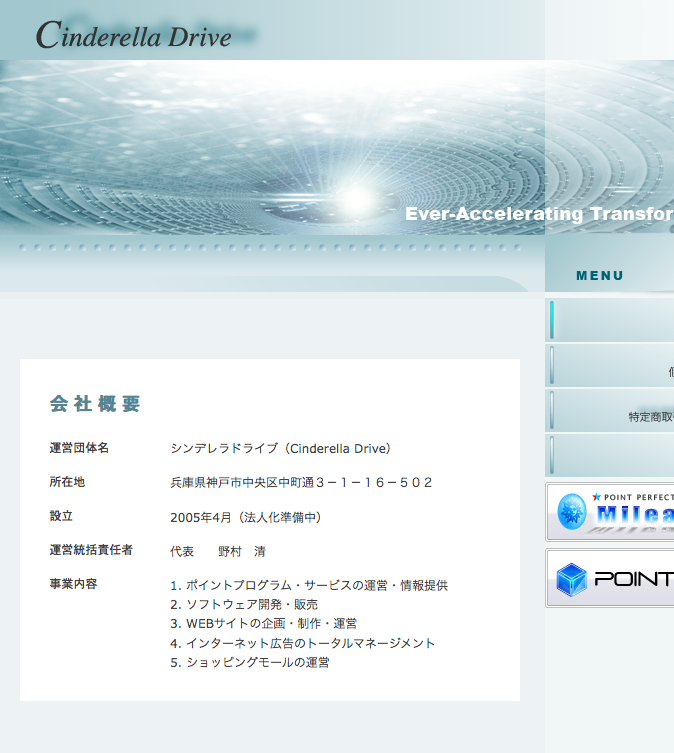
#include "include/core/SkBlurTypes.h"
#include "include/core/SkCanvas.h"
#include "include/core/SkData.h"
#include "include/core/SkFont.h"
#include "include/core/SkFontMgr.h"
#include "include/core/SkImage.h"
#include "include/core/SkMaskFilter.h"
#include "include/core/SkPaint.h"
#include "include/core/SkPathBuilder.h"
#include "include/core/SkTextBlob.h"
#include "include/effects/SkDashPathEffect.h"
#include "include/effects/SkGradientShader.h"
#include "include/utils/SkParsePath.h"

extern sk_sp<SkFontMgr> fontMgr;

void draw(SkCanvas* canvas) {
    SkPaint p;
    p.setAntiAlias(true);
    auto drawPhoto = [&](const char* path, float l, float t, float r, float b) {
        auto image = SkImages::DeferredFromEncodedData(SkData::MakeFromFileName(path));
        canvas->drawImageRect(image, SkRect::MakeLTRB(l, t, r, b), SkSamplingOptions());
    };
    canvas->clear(0xFFFFFFFF);
    drawPhoto("media/1.png", 0, 0, 545, 60);
    drawPhoto("media/2.png", 545, 0, 674, 60);
    drawPhoto("media/3.png", 0, 60, 545, 146);
    drawPhoto("media/4.png", 545, 60, 674, 146);
    drawPhoto("media/5.png", 0, 146, 545, 233);
    drawPhoto("media/6.png", 545, 146, 674, 233);
    drawPhoto("media/7.png", 0, 233, 545, 299);
    drawPhoto("media/8.png", 545, 233, 674, 299);
    drawPhoto("media/9.png", 0, 299, 545, 753);
    drawPhoto("media/10.png", 545, 299, 674, 344);
    drawPhoto("media/11.png", 545, 344, 674, 389);
    drawPhoto("media/12.png", 545, 389, 674, 434);
    drawPhoto("media/13.png", 545, 434, 674, 479);
    p.setColor(0xFFF1F6F7);
    canvas->drawRect(SkRect::MakeLTRB(545, 479, 674, 753), p);
    drawPhoto("media/14.png", 545, 482, 674, 542);
    drawPhoto("media/15.png", 545, 548, 674, 608);
}
